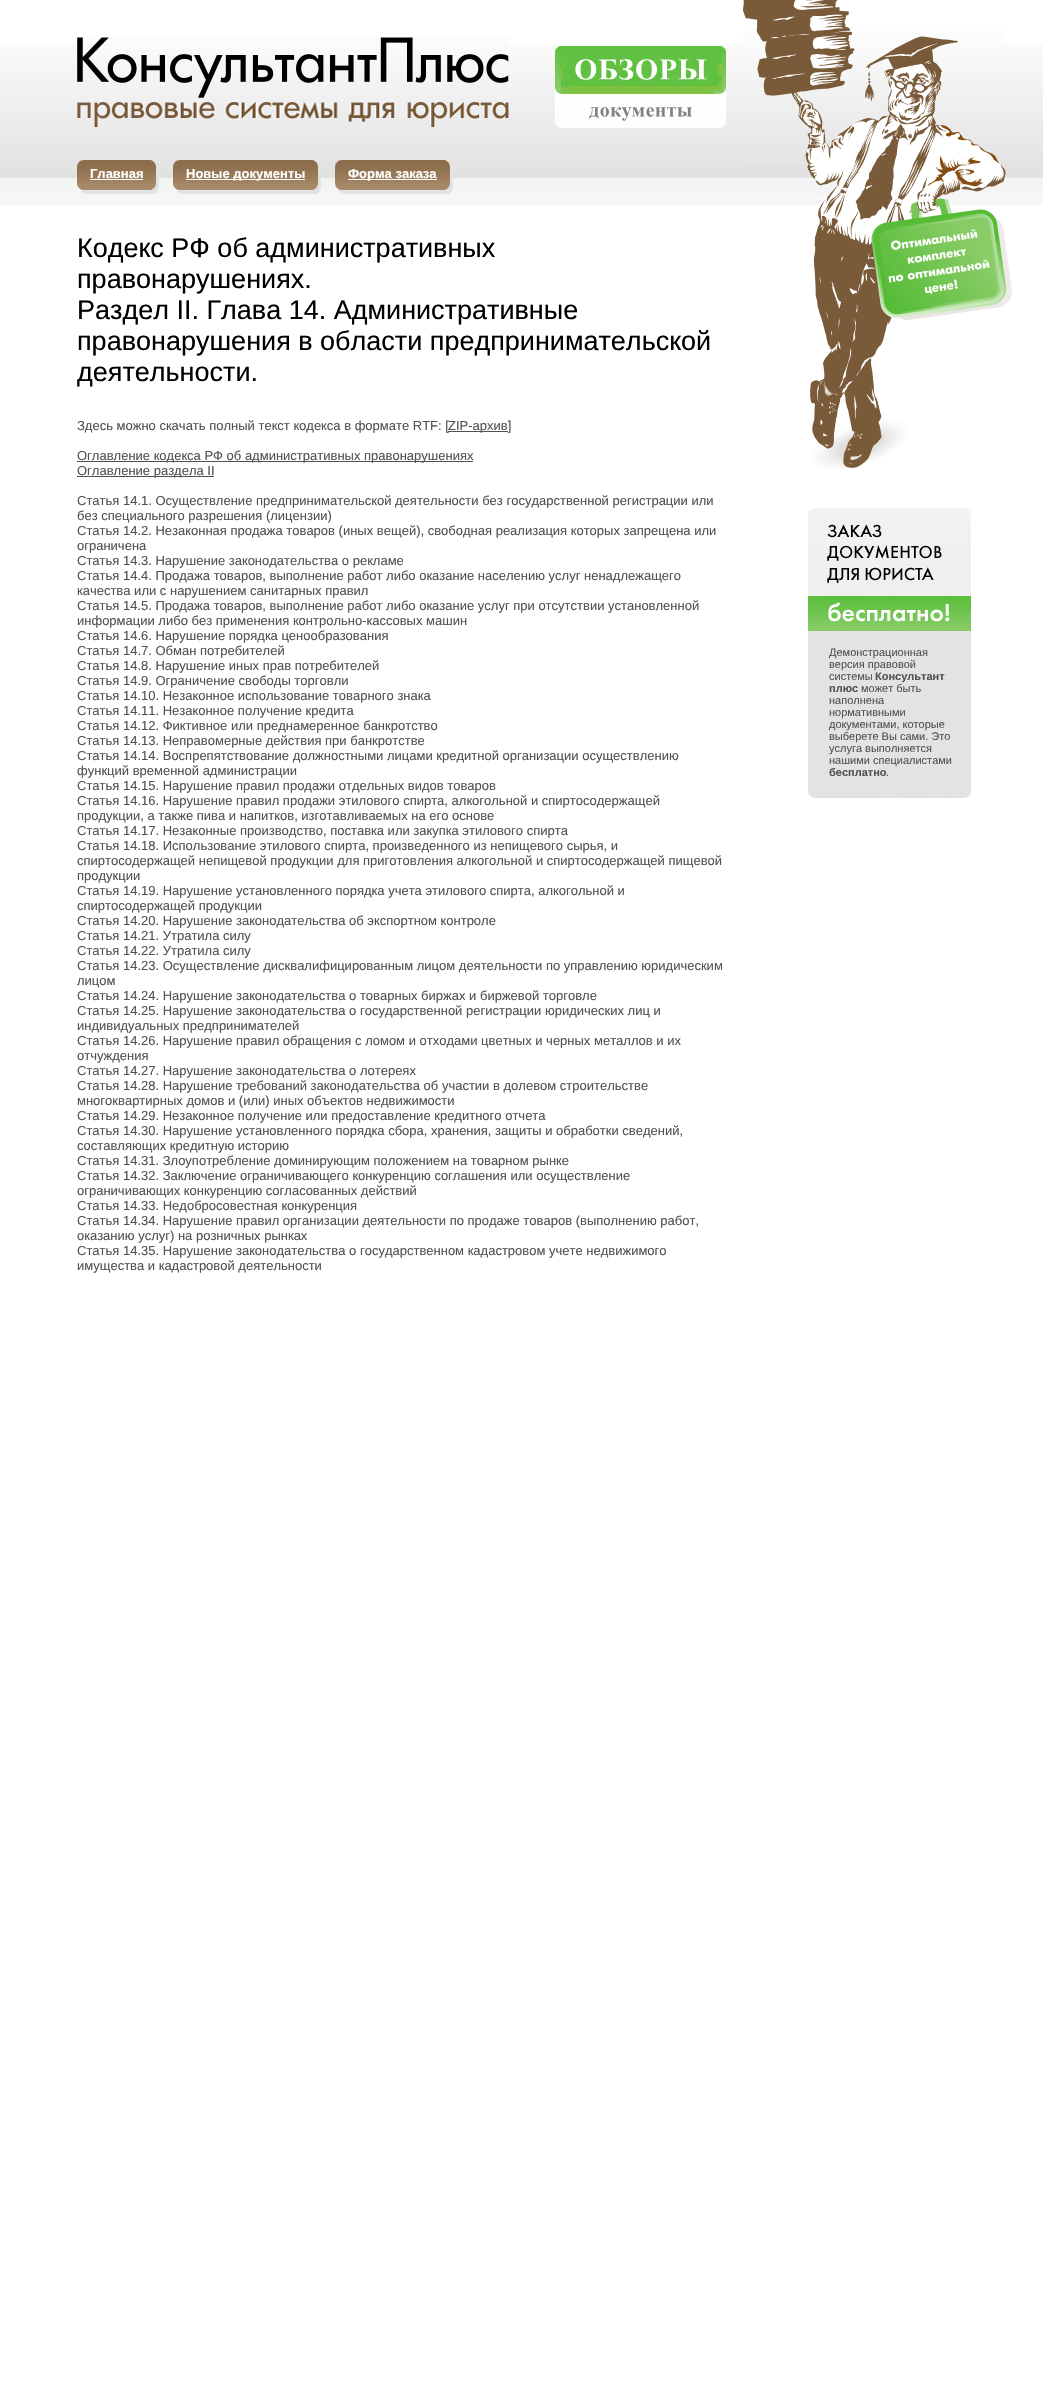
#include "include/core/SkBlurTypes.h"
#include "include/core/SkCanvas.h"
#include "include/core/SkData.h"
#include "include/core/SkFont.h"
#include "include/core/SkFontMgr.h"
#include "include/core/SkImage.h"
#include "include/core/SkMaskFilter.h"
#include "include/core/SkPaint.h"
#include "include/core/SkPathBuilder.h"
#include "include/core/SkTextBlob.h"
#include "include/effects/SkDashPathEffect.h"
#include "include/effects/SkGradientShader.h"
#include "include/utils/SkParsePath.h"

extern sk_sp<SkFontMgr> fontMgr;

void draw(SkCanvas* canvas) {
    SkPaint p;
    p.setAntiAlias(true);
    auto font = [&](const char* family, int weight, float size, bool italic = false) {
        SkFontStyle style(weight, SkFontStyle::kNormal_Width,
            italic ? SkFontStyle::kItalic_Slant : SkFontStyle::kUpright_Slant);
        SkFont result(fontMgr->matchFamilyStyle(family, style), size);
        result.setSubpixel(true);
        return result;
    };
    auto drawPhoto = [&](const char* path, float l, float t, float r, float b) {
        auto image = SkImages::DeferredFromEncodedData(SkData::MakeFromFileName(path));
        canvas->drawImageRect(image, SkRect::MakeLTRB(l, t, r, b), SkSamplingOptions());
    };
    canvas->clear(0xFFFFFFFF);
    drawPhoto("media/1.png", 0, 44, 1043, 205);
    drawPhoto("media/2.png", 743, 0, 1006, 205);
    drawPhoto("media/3.png", 77, 37, 509, 127);
    drawPhoto("media/4.png", 555, 46, 726, 128);
    drawPhoto("media/5.png", 77, 160, 85, 194);
    drawPhoto("media/6.png", 151, 160, 159, 194);
    drawPhoto("media/7.png", 85, 160, 151, 194);
    auto font1 = font("Liberation Sans", 700, 13);
    p.setColor(0xFFFFFFFF);
    canvas->drawString("Главная", 90, 178, font1, p);
    canvas->drawRect(SkRect::MakeLTRB(90, 179, 143, 180), p);
    drawPhoto("media/5.png", 173, 160, 181, 194);
    drawPhoto("media/6.png", 313, 160, 321, 194);
    drawPhoto("media/8.png", 181, 160, 313, 194);
    canvas->drawRect(SkRect::MakeLTRB(186, 179, 305, 180), p);
    canvas->drawString("Новые документы", 186, 178, font1, p);
    drawPhoto("media/5.png", 335, 160, 343, 194);
    drawPhoto("media/6.png", 445, 160, 453, 194);
    drawPhoto("media/9.png", 343, 160, 445, 194);
    canvas->drawRect(SkRect::MakeLTRB(348, 179, 437, 180), p);
    canvas->drawString("Форма заказа", 348, 178, font1, p);
    drawPhoto("media/10.png", 810, 205, 1012, 469);
    auto font2 = font("Liberation Sans", 400, 27);
    p.setColor(0xFF000000);
    {
        const struct { const char* s; float x, y; } items[] = {
            {"Кодекс РФ об административных", 77, 257},
            {"правонарушениях.", 77, 288},
            {"Раздел II. Глава 14. Административные", 77, 319},
            {"правонарушения в области предпринимательской", 77, 350},
            {"деятельности.", 77, 381},
        };
        for (auto [s, x, y] : items) {
            canvas->drawString(s, x, y, font2, p);
        }
    }
    auto font3 = font("Liberation Sans", 400, 13);
    p.setColor(0xFF515151);
    canvas->drawString("Здесь можно скачать полный текст кодекса в формате RTF: [", 77, 430, font3, p);
    canvas->drawRect(SkRect::MakeLTRB(448, 431, 508, 432), p);
    canvas->drawString("ZIP-архив]", 448, 430, font3, p);
    canvas->drawRect(SkRect::MakeLTRB(77, 461, 473, 462), p);
    canvas->drawString("Оглавление кодекса РФ об административных правонарушениях", 77, 460, font3, p);
    canvas->drawRect(SkRect::MakeLTRB(77, 476, 214, 477), p);
    {
        const struct { const char* s; float x, y; } items[] = {
            {"Оглавление раздела II", 77, 475},
            {"Статья 14.1. Осуществление предпринимательской деятельности без государственной регистрации или", 77, 505},
            {"без специального разрешения (лицензии)", 77, 520},
            {"Статья 14.2. Незаконная продажа товаров (иных вещей), свободная реализация которых запрещена или", 77, 535},
            {"ограничена", 77, 550},
            {"Статья 14.3. Нарушение законодательства о рекламе", 77, 565},
            {"Статья 14.4. Продажа товаров, выполнение работ либо оказание населению услуг ненадлежащего", 77, 580},
            {"качества или с нарушением санитарных правил", 77, 595},
            {"Статья 14.5. Продажа товаров, выполнение работ либо оказание услуг при отсутствии установленной", 77, 610},
            {"информации либо без применения контрольно-кассовых машин", 77, 625},
            {"Статья 14.6. Нарушение порядка ценообразования", 77, 640},
            {"Статья 14.7. Обман потребителей", 77, 655},
            {"Статья 14.8. Нарушение иных прав потребителей", 77, 670},
            {"Статья 14.9. Ограничение свободы торговли", 77, 685},
            {"Статья 14.10. Незаконное использование товарного знака", 77, 700},
            {"Статья 14.11. Незаконное получение кредита", 77, 715},
            {"Статья 14.12. Фиктивное или преднамеренное банкротство", 77, 730},
            {"Статья 14.13. Неправомерные действия при банкротстве", 77, 745},
            {"Статья 14.14. Воспрепятствование должностными лицами кредитной организации осуществлению", 77, 760},
            {"функций временной администрации", 77, 775},
            {"Статья 14.15. Нарушение правил продажи отдельных видов товаров", 77, 790},
            {"Статья 14.16. Нарушение правил продажи этилового спирта, алкогольной и спиртосодержащей", 77, 805},
            {"продукции, а также пива и напитков, изготавливаемых на его основе", 77, 820},
            {"Статья 14.17. Незаконные производство, поставка или закупка этилового спирта", 77, 835},
            {"Статья 14.18. Использование этилового спирта, произведенного из непищевого сырья, и", 77, 850},
            {"спиртосодержащей непищевой продукции для приготовления алкогольной и спиртосодержащей пищевой", 77, 865},
            {"продукции", 77, 880},
            {"Статья 14.19. Нарушение установленного порядка учета этилового спирта, алкогольной и", 77, 895},
            {"спиртосодержащей продукции", 77, 910},
            {"Статья 14.20. Нарушение законодательства об экспортном контроле", 77, 925},
            {"Статья 14.21. Утратила силу", 77, 940},
            {"Статья 14.22. Утратила силу", 77, 955},
            {"Статья 14.23. Осуществление дисквалифицированным лицом деятельности по управлению юридическим", 77, 970},
            {"лицом", 77, 985},
            {"Статья 14.24. Нарушение законодательства о товарных биржах и биржевой торговле", 77, 1000},
            {"Статья 14.25. Нарушение законодательства о государственной регистрации юридических лиц и", 77, 1015},
            {"индивидуальных предпринимателей", 77, 1030},
            {"Статья 14.26. Нарушение правил обращения с ломом и отходами цветных и черных металлов и их", 77, 1045},
            {"отчуждения", 77, 1060},
            {"Статья 14.27. Нарушение законодательства о лотереях", 77, 1075},
            {"Статья 14.28. Нарушение требований законодательства об участии в долевом строительстве", 77, 1090},
            {"многоквартирных домов и (или) иных объектов недвижимости", 77, 1105},
            {"Статья 14.29. Незаконное получение или предоставление кредитного отчета", 77, 1120},
            {"Статья 14.30. Нарушение установленного порядка сбора, хранения, защиты и обработки сведений,", 77, 1135},
            {"составляющих кредитную историю", 77, 1150},
            {"Статья 14.31. Злоупотребление доминирующим положением на товарном рынке", 77, 1165},
            {"Статья 14.32. Заключение ограничивающего конкуренцию соглашения или осуществление", 77, 1180},
            {"ограничивающих конкуренцию согласованных действий", 77, 1195},
            {"Статья 14.33. Недобросовестная конкуренция", 77, 1210},
            {"Статья 14.34. Нарушение правил организации деятельности по продаже товаров (выполнению работ,", 77, 1225},
            {"оказанию услуг) на розничных рынках", 77, 1240},
            {"Статья 14.35. Нарушение законодательства о государственном кадастровом учете недвижимого", 77, 1255},
            {"имущества и кадастровой деятельности", 77, 1270},
        };
        for (auto [s, x, y] : items) {
            canvas->drawString(s, x, y, font3, p);
        }
    }
    p.setColor(0xFFE2E3E3);
    canvas->drawRect(SkRect::MakeLTRB(808, 631, 971, 792), p);
    drawPhoto("media/11.png", 808, 792, 971, 798);
    drawPhoto("media/12.png", 808, 508, 971, 631);
    auto font4 = font("Liberation Sans", 400, 11);
    p.setColor(0xFF515151);
    {
        const struct { const char* s; float x, y; } items[] = {
            {"Демонстрационная", 829, 656},
            {"версия правовой", 829, 668},
            {"системы", 829, 680},
        };
        for (auto [s, x, y] : items) {
            canvas->drawString(s, x, y, font4, p);
        }
    }
    auto font5 = font("Liberation Sans", 700, 11);
    canvas->drawString("Консультант", 875, 680, font5, p);
    canvas->drawString("плюс", 829, 692, font5, p);
    {
        const struct { const char* s; float x, y; } items[] = {
            {"может быть", 861, 692},
            {"наполнена", 829, 704},
            {"нормативными", 829, 716},
            {"документами, которые", 829, 728},
            {"выберете Вы сами. Это", 829, 740},
            {"услуга выполняется", 829, 752},
            {"нашими специалистами", 829, 764},
        };
        for (auto [s, x, y] : items) {
            canvas->drawString(s, x, y, font4, p);
        }
    }
    canvas->drawString("бесплатно", 829, 776, font5, p);
    canvas->drawString(".", 886, 776, font4, p);
}
